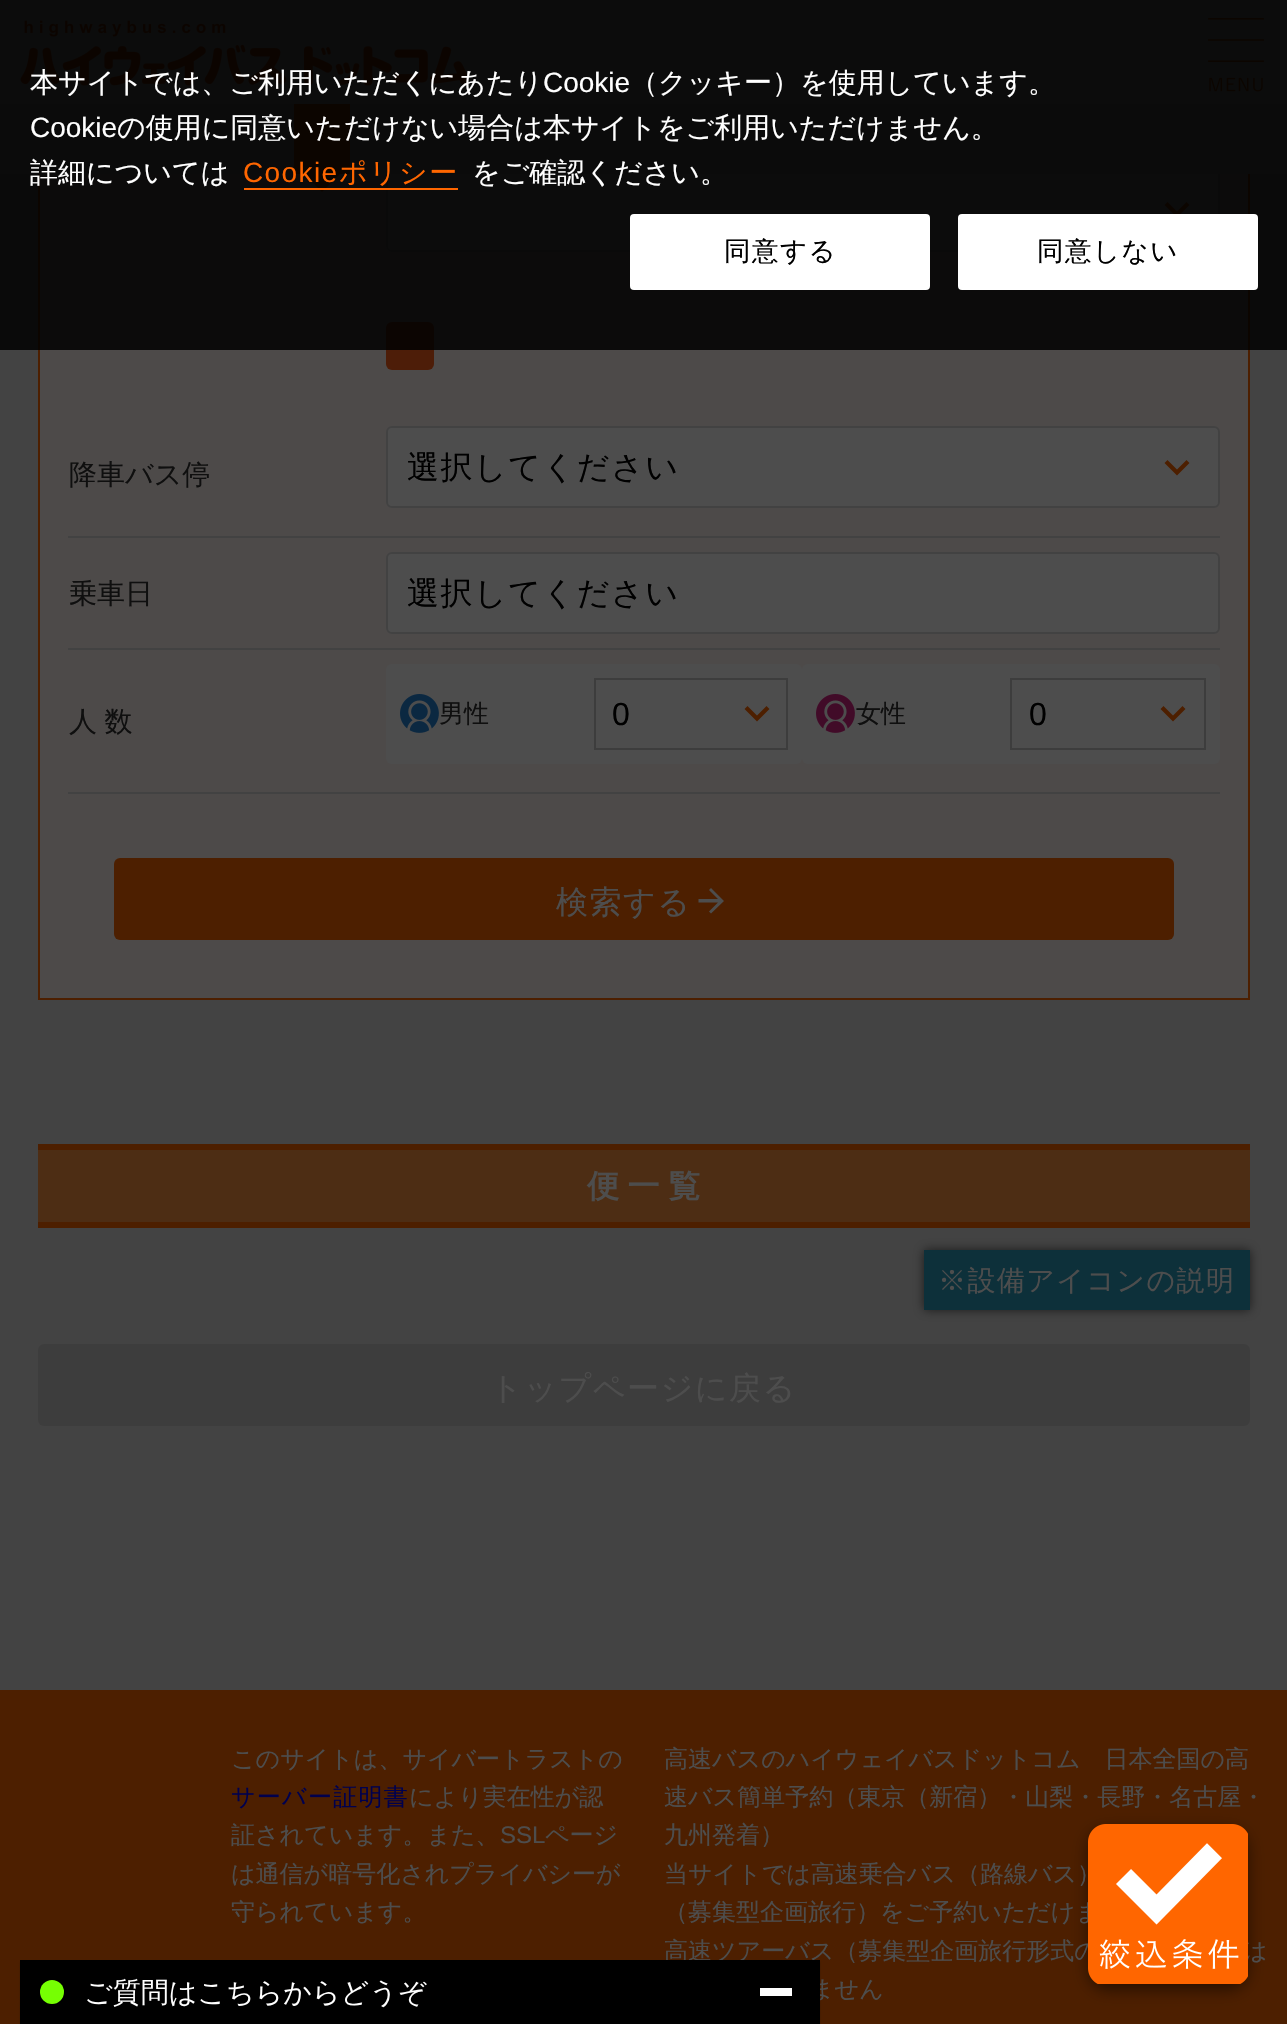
#include "include/core/SkBlurTypes.h"
#include "include/core/SkCanvas.h"
#include "include/core/SkData.h"
#include "include/core/SkFont.h"
#include "include/core/SkFontMgr.h"
#include "include/core/SkImage.h"
#include "include/core/SkMaskFilter.h"
#include "include/core/SkPaint.h"
#include "include/core/SkPathBuilder.h"
#include "include/core/SkTextBlob.h"
#include "include/effects/SkDashPathEffect.h"
#include "include/effects/SkGradientShader.h"
#include "include/utils/SkParsePath.h"

extern sk_sp<SkFontMgr> fontMgr;

void draw(SkCanvas* canvas) {
    SkPaint p;
    p.setAntiAlias(true);
    auto font = [&](const char* family, int weight, float size, bool italic = false) {
        SkFontStyle style(weight, SkFontStyle::kNormal_Width,
            italic ? SkFontStyle::kItalic_Slant : SkFontStyle::kUpright_Slant);
        SkFont result(fontMgr->matchFamilyStyle(family, style), size);
        result.setSubpixel(true);
        return result;
    };
    auto drawTracked = [&](const char* s, float x, float y, const SkFont& font, const SkPaint& ink, float letter, float word) {
        std::vector<SkGlyphID> glyphs(font.countText(s, strlen(s), SkTextEncoding::kUTF8));
        std::vector<float> xs(glyphs.size());
        font.textToGlyphs(s, strlen(s), SkTextEncoding::kUTF8, glyphs);
        font.getXPos(glyphs, xs, x);
        float extra = 0;
        for (size_t i = 0; i < glyphs.size(); i++) {
            xs[i] += extra;
            extra += letter + word * (glyphs[i] == font.unicharToGlyph(' '));
        }
        canvas->drawTextBlob(SkTextBlob::MakeFromPosHGlyphs(glyphs, xs, y, font), 0, 0, ink);
    };
    auto drawPhoto = [&](const char* path, float l, float t, float r, float b) {
        auto image = SkImages::DeferredFromEncodedData(SkData::MakeFromFileName(path));
        canvas->drawImageRect(image, SkRect::MakeLTRB(l, t, r, b), SkSamplingOptions());
    };
    canvas->clear(0xFF434343);
    p.setColor(0xFF4D4A49);
    canvas->drawRect(SkRect::MakeLTRB(40, 174, 1248, 998), p);
    p.setStyle(SkPaint::kStroke_Style);
    p.setStrokeWidth(2);
    p.setColor(0xFF4D1F00);
    canvas->drawRect(SkRect::MakeLTRB(39, -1, 1249, 999), p);
    p.setStyle(SkPaint::kFill_Style);
    p.setColor(0xFF4D4D4D);
    canvas->drawRect(SkRect::MakeLTRB(0, 0, 1287, 104), p);
    drawPhoto("media/1.png", 20, 20, 469, 86);
    drawPhoto("media/2.png", 1208, 18, 1264, 92);
    canvas->drawRoundRect(SkRect::MakeLTRB(387, 169, 1219, 251), 5, 5, p);
    p.setStyle(SkPaint::kStroke_Style);
    p.setColor(0xFF424242);
    canvas->drawRoundRect(SkRect::MakeLTRB(387, 169, 1219, 251), 5, 5, p);
    p.setStyle(SkPaint::kFill_Style);
    p.setColor(0xFF474747);
    canvas->drawRect(SkRect::MakeLTRB(0, 104, 1287, 174), p);
    p.setColor(0xFF4D1F00);
    canvas->drawRect(SkRect::MakeLTRB(294, 104, 350, 174), p);
    canvas->drawPath(SkPathBuilder().moveTo(302, 172).lineTo(342, 172).lineTo(322, 192).close().detach(), p);
    canvas->drawPath(SkPathBuilder().moveTo(1186.5f, 202).lineTo(1189.5f, 205).lineTo(1177, 217.5f).lineTo(1164.5f, 205).lineTo(1167.5f, 202).lineTo(1177, 211.5f).close().detach(), p);
    p.setColor(0xFF4D1D08);
    canvas->drawRoundRect(SkRect::MakeLTRB(386, 322, 434, 370), 6, 6, p);
    p.setColor(0xD9000000);
    canvas->drawRect(SkRect::MakeLTRB(0, 0, 1287, 350), p);
    auto font1 = font("WenQuanYi Zen Hei", 500, 28);
    p.setColor(0xFFFFFFFF);
    canvas->drawString("本サイトでは、ご利用いただくにあたり", 30, 92, font1, p);
    auto font2 = font("Liberation Sans", 400, 28);
    canvas->drawString("Cookie", 543, 92, font2, p);
    canvas->drawString("（クッキー）を使用しています。", 630, 92, font1, p);
    canvas->drawString("Cookie", 30, 137, font2, p);
    canvas->drawString("の使用に同意いただけない場合は本サイトをご利用いただけません。", 117, 137, font1, p);
    canvas->drawString("詳細については", 30, 182, font1, p);
    p.setColor(0xFFFF6600);
    drawTracked("Cookie", 243, 182, font2, p, 1.4f, 0);
    drawTracked("ポリシー", 339, 182, font1, p, 1.4f, 0);
    canvas->drawRect(SkRect::MakeLTRB(244, 188, 458, 190), p);
    p.setColor(0xFFFFFFFF);
    canvas->drawString("をご確認ください。", 472, 182, font1, p);
    canvas->drawRoundRect(SkRect::MakeLTRB(630, 214, 930, 290), 4, 4, p);
    auto font3 = font("WenQuanYi Zen Hei", 500, 26.5f);
    p.setColor(0xFF000000);
    drawTracked("同意する", 724, 260, font3, p, 1.5f, 0);
    p.setColor(0xFFFFFFFF);
    canvas->drawRoundRect(SkRect::MakeLTRB(958, 214, 1258, 290), 4, 4, p);
    p.setColor(0xFF000000);
    drawTracked("同意しない", 1037, 260, font3, p, 1.5f, 0);
    p.setColor(0xFF424242);
    canvas->drawRect(SkRect::MakeLTRB(68, 536, 1220, 538), p);
    p.setColor(0xFF0F0F0F);
    canvas->drawString("降車バス停", 69, 484, font1, p);
    p.setColor(0xFF4D4D4D);
    canvas->drawRoundRect(SkRect::MakeLTRB(387, 427, 1219, 507), 5, 5, p);
    p.setStyle(SkPaint::kStroke_Style);
    p.setColor(0xFF424242);
    canvas->drawRoundRect(SkRect::MakeLTRB(387, 427, 1219, 507), 5, 5, p);
    auto font4 = font("WenQuanYi Zen Hei", 500, 32);
    p.setStyle(SkPaint::kFill_Style);
    p.setColor(0xFF000000);
    drawTracked("選択してください", 407, 478, font4, p, 1.5f, 0);
    p.setColor(0xFF4D1F00);
    canvas->drawPath(SkPathBuilder().moveTo(1186.5f, 460).lineTo(1189.5f, 463).lineTo(1177, 475.5f).lineTo(1164.5f, 463).lineTo(1167.5f, 460).lineTo(1177, 469.5f).close().detach(), p);
    p.setColor(0xFF424242);
    canvas->drawRect(SkRect::MakeLTRB(68, 648, 1220, 650), p);
    p.setColor(0xFF0F0F0F);
    canvas->drawString("乗車日", 69, 603, font1, p);
    p.setColor(0xFF4D4D4D);
    canvas->drawRoundRect(SkRect::MakeLTRB(387, 553, 1219, 633), 5, 5, p);
    p.setStyle(SkPaint::kStroke_Style);
    p.setColor(0xFF424242);
    canvas->drawRoundRect(SkRect::MakeLTRB(387, 553, 1219, 633), 5, 5, p);
    p.setStyle(SkPaint::kFill_Style);
    p.setColor(0xFF000000);
    drawTracked("選択してください", 407, 604, font4, p, 1.5f, 0);
    p.setColor(0xFF424242);
    canvas->drawRect(SkRect::MakeLTRB(68, 792, 1220, 794), p);
    p.setColor(0xFF0F0F0F);
    drawTracked("人 数", 69, 731, font1, p, 0, -1);
    p.setColor(0xFF4D4D4D);
    canvas->drawRoundRect(SkRect::MakeLTRB(386, 664, 802, 764), 6, 6, p);
    drawPhoto("media/3.png", 400, 694, 439, 733);
    auto font5 = font("WenQuanYi Zen Hei", 500, 25);
    p.setColor(0xFF0F0F0F);
    canvas->drawString("男性", 439, 722, font5, p);
    p.setStyle(SkPaint::kStroke_Style);
    p.setColor(0xFF3D3D3D);
    canvas->drawRect(SkRect::MakeLTRB(595, 679, 787, 749), p);
    auto font6 = font("Liberation Sans", 400, 32);
    p.setStyle(SkPaint::kFill_Style);
    p.setColor(0xFF000000);
    canvas->drawString("0", 612, 725, font6, p);
    p.setColor(0xFF4D1F00);
    canvas->drawPath(SkPathBuilder().moveTo(766.5f, 706).lineTo(769.5f, 709).lineTo(757, 721.5f).lineTo(744.5f, 709).lineTo(747.5f, 706).lineTo(757, 715.5f).close().detach(), p);
    p.setColor(0xFF4D4D4D);
    canvas->drawRoundRect(SkRect::MakeLTRB(802, 664, 1220, 764), 6, 6, p);
    drawPhoto("media/4.png", 816, 694, 855, 733);
    p.setColor(0xFF0F0F0F);
    canvas->drawString("女性", 856, 722, font5, p);
    p.setStyle(SkPaint::kStroke_Style);
    p.setColor(0xFF3D3D3D);
    canvas->drawRect(SkRect::MakeLTRB(1011, 679, 1205, 749), p);
    p.setStyle(SkPaint::kFill_Style);
    p.setColor(0xFF000000);
    canvas->drawString("0", 1029, 725, font6, p);
    p.setColor(0xFF4D1F00);
    canvas->drawPath(SkPathBuilder().moveTo(1182.5f, 706).lineTo(1185.5f, 709).lineTo(1173, 721.5f).lineTo(1160.5f, 709).lineTo(1163.5f, 706).lineTo(1173, 715.5f).close().detach(), p);
    canvas->drawRoundRect(SkRect::MakeLTRB(114, 858, 1174, 940), 6, 6, p);
    p.setColor(0xFF4D4D4D);
    drawTracked("検索する", 556, 913, font4, p, 1.5f, 0);
    canvas->drawPath(SkPathBuilder().moveTo(711, 888).lineTo(724, 901).lineTo(711, 913.5f).lineTo(709, 911.5f).lineTo(718, 902.5f).lineTo(698.5f, 902.5f).lineTo(698.5f, 899).lineTo(718, 899).lineTo(709, 890).close().detach(), p);
    {
        const struct { float l, t, r, b; SkColor color; } items[] = {
            {38, 1150, 1250, 1222, 0xFF4D2D14},
            {38, 1144, 1250, 1150, 0xFF4D1F00},
            {38, 1222, 1250, 1228, 0xFF4D1F00},
        };
        for (auto [l, t, r, b, color] : items) {
            p.setColor(color);
            canvas->drawRect(SkRect::MakeLTRB(l, t, r, b), p);
        }
    }
    auto font7 = font("WenQuanYi Zen Hei", 700, 32);
    p.setColor(0xFF4D4D4D);
    drawTracked("便 一 覧", 587, 1197, font7, p, 0, -1);
    p.setColor(0x99000000);
    p.setMaskFilter(SkMaskFilter::MakeBlur(kNormal_SkBlurStyle, 5));
    canvas->drawRect(SkRect::MakeLTRB(924, 1250, 1250, 1310), p);
    p.setMaskFilter(nullptr);
    p.setColor(0xFF0D303A);
    canvas->drawRect(SkRect::MakeLTRB(924, 1250, 1250, 1310), p);
    p.setColor(0xFF4D4D4D);
    drawTracked("※設備アイコンの説明", 938, 1290, font1, p, 1.4f, 0);
    p.setColor(0xFF3D3D3D);
    canvas->drawRoundRect(SkRect::MakeLTRB(38, 1344, 1250, 1426), 6, 6, p);
    p.setColor(0xFF4D4D4D);
    drawTracked("トップページに戻る", 490, 1399, font4, p, 1.5f, 0);
    p.setColor(0xFF4D1F00);
    canvas->drawRect(SkRect::MakeLTRB(0, 1690, 1287, 2024), p);
    p.setColor(0x80000000);
    p.setMaskFilter(SkMaskFilter::MakeBlur(kNormal_SkBlurStyle, 8));
    canvas->drawRoundRect(SkRect::MakeLTRB(1088, 1830, 1248, 1990), 20, 20, p);
    p.setMaskFilter(nullptr);
    auto font8 = font("WenQuanYi Zen Hei", 500, 24);
    p.setColor(0xFF4D4D4D);
    {
        const struct { const char* s; float x, y; } items[] = {
            {"（募集型企画旅行）をご予約いただけま", 664, 1920},
            {"高速ツアーバス（募集型企画旅行形式の", 664, 1959},
            {"は", 1243, 1959},
        };
        for (auto [s, x, y] : items) {
            canvas->drawString(s, x, y, font8, p);
        }
    }
    drawPhoto("media/5.png", 1088, 1824, 1248, 1984);
    canvas->drawString("このサイトは、サイバートラストの", 231, 1767, font8, p);
    p.setColor(0xFF00004D);
    drawTracked("サーバー証明書", 231, 1805, font8, p, 1.25f, 0);
    p.setColor(0xFF4D4D4D);
    canvas->drawString("により実在性が認", 409, 1805, font8, p);
    canvas->drawString("証されています。また、", 231, 1843, font8, p);
    auto font9 = font("Liberation Sans", 400, 24);
    canvas->drawString("SSL", 500, 1843, font9, p);
    {
        const struct { const char* s; float x, y; } items[] = {
            {"ページ", 545, 1843},
            {"は通信が暗号化されプライバシーが", 231, 1882},
            {"守られています。", 231, 1920},
            {"高速バスのハイウェイバスドットコム　日本全国の高", 664, 1767},
            {"速バス簡単予約（東京（新宿）・山梨・長野・名古屋・", 664, 1805},
            {"九州発着）", 664, 1843},
            {"当サイトでは高速乗合バス（路線バス）", 664, 1882},
            {"ません", 810, 1997},
        };
        for (auto [s, x, y] : items) {
            canvas->drawString(s, x, y, font8, p);
        }
    }
    p.setColor(0x33000000);
    p.setMaskFilter(SkMaskFilter::MakeBlur(kNormal_SkBlurStyle, 1));
    canvas->drawRect(SkRect::MakeLTRB(20, 1962, 820, 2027), p);
    p.setMaskFilter(nullptr);
    drawPhoto("media/6.png", 20, 1960, 820, 2024);
}
